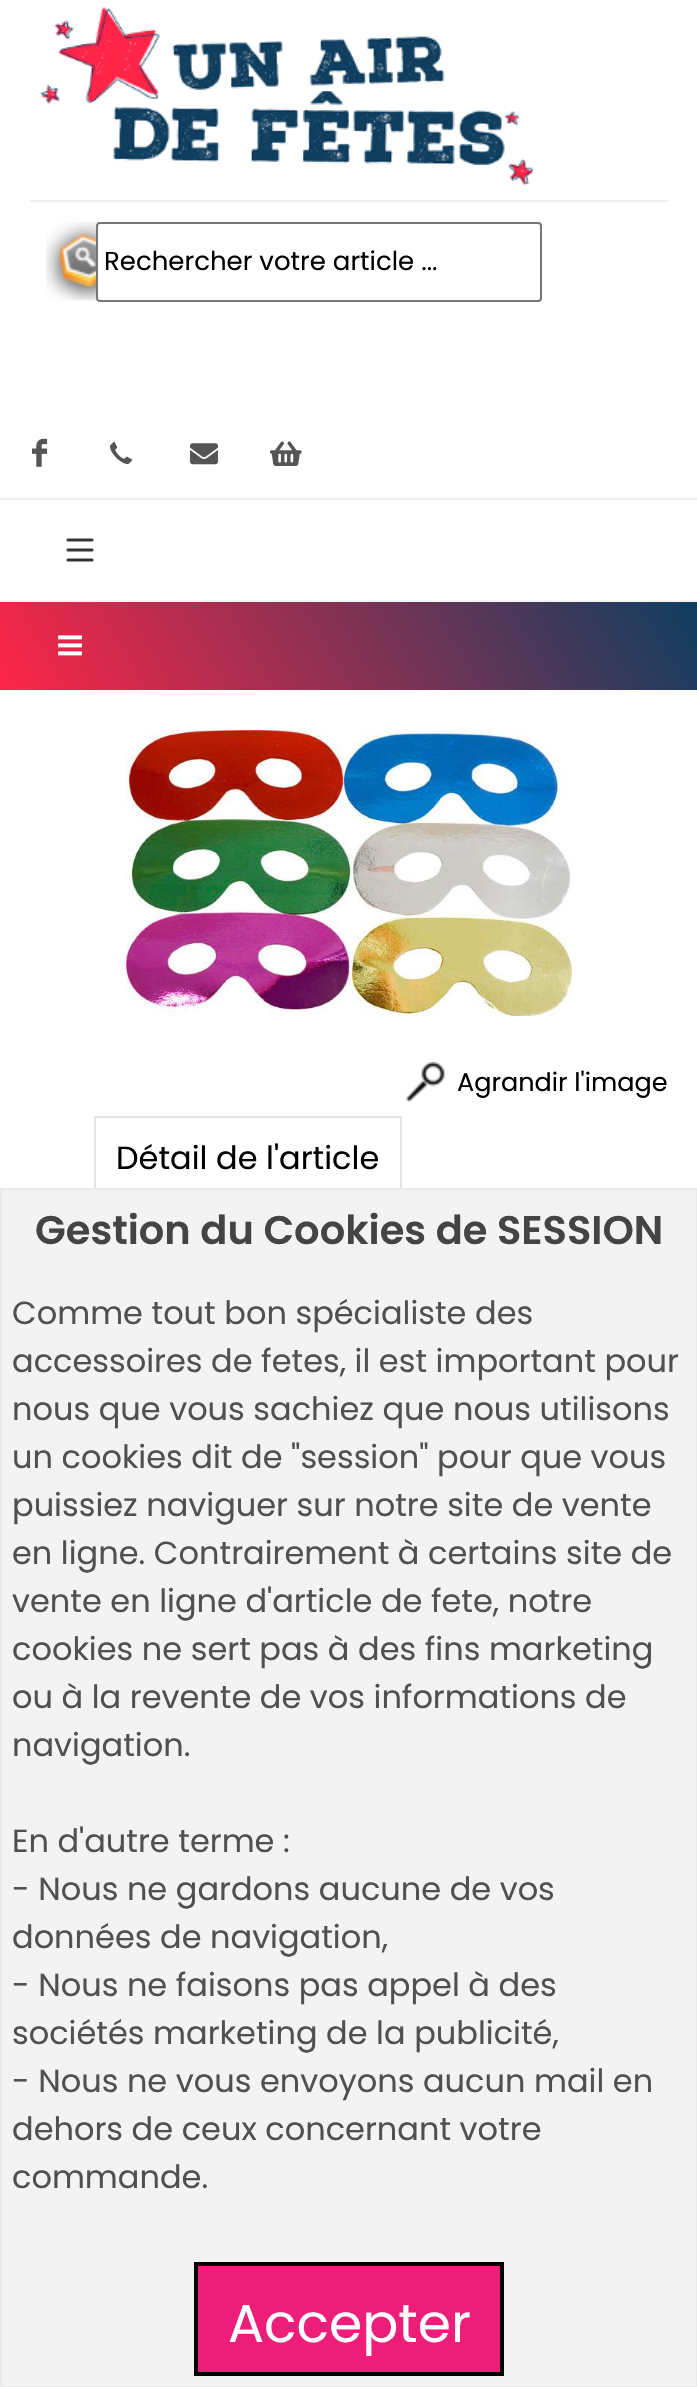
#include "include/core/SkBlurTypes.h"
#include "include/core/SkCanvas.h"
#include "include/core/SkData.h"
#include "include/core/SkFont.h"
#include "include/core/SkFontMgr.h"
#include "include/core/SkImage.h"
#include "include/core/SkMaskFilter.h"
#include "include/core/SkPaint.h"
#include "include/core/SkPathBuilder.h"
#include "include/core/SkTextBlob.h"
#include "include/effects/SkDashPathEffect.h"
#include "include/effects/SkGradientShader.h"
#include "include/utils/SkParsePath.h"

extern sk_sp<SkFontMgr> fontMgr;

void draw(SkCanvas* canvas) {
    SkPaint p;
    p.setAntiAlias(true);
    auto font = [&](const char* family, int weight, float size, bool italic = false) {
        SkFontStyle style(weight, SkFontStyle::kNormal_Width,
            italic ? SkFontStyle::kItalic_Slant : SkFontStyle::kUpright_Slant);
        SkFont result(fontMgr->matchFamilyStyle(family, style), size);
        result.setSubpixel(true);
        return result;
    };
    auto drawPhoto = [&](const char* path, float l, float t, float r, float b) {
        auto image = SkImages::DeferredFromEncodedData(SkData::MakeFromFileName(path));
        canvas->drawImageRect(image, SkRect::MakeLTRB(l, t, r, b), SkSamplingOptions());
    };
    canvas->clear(0xFFFFFFFF);
    p.setColor(0xFFEEEEEE);
    canvas->drawRect(SkRect::MakeLTRB(0, 498, 697, 500), p);
    canvas->drawRect(SkRect::MakeLTRB(30, 200, 668, 202), p);
    drawPhoto("media/1.png", 40, 7, 534, 186);
    drawPhoto("media/2.png", 46, 222, 96, 301);
    p.setStyle(SkPaint::kStroke_Style);
    p.setStrokeWidth(2);
    p.setColor(0xFF767676);
    canvas->drawRoundRect(SkRect::MakeLTRB(97, 223, 541, 301), 3, 3, p);
    auto font1 = font("Poppins", 400, 26);
    p.setStyle(SkPaint::kFill_Style);
    p.setColor(0xFF000000);
    canvas->drawString("Rechercher votre article ...", 104, 270, font1, p);
    drawPhoto("media/3.png", 32, 438, 48, 467);
    drawPhoto("media/4.png", 110, 441, 133, 464);
    drawPhoto("media/5.png", 190, 443, 218, 465);
    drawPhoto("media/6.png", 270, 441, 302, 466);
    p.setColor(0xFFF5F5F5);
    canvas->drawRect(SkRect::MakeLTRB(0, 600, 697, 602), p);
    p.setStyle(SkPaint::kStroke_Style);
    p.setStrokeWidth(3);
    p.setStrokeCap(SkPaint::kRound_Cap);
    p.setColor(0xFF333333);
    canvas->drawPath(SkPathBuilder().moveTo(68, 540).lineTo(92, 540).moveTo(68, 550).lineTo(92, 550).moveTo(92, 560).lineTo(68, 560).detach(), p);
    p.setStyle(SkPaint::kFill_Style);
    {
        const SkColor colors[] = {0xFF0E3E5F, 0xFFFE2548};
        const float stops[] = {0, 1};
        const SkPoint ends[] = {{625, 480}, {73, 812}};
        p.setShader(SkGradientShader::MakeLinear(ends, colors, stops, 2, SkTileMode::kClamp));
        p.setAlpha(255);
    }
    canvas->drawRect(SkRect::MakeLTRB(0, 602, 697, 690), p);
    drawPhoto("media/7.png", 58, 635, 82, 656);
    drawPhoto("media/8.png", 126, 730, 572, 1016);
    drawPhoto("media/9.png", 406, 1062, 446, 1102);
    auto font2 = font("Poppins", 400, 25.5f);
    p.setShader(nullptr);
    p.setColor(0xFF000000);
    canvas->drawString("Agrandir l'image", 457, 1091, font2, p);
    {
        const struct { float l, t, r, b; SkColor color; } items[] = {
            {94, 1116, 402, 1118, 0xFFE6E5E5},
            {400, 1116, 402, 1194, 0xFFE6E5E5},
            {94, 1116, 96, 1194, 0xFFE6E5E5},
        };
        for (auto [l, t, r, b, color] : items) {
            p.setColor(color);
            canvas->drawRect(SkRect::MakeLTRB(l, t, r, b), p);
        }
    }
    auto font3 = font("Poppins", 400, 32);
    p.setColor(0xFF000000);
    canvas->drawString("Détail de l'article", 116, 1169, font3, p);
    p.setColor(0xFFF3F3F3);
    canvas->drawRect(SkRect::MakeLTRB(1, 1189, 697, 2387), p);
    p.setStyle(SkPaint::kStroke_Style);
    p.setStrokeWidth(2);
    p.setStrokeCap(SkPaint::kButt_Cap);
    p.setColor(0xFFEAEAEA);
    canvas->drawRect(SkRect::MakeLTRB(1, 1189, 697, 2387), p);
    auto font4 = font("Poppins", 600, 40);
    p.setStyle(SkPaint::kFill_Style);
    p.setColor(0xFF444444);
    canvas->drawString("Gestion du Cookies de SESSION", 35, 1244, font4, p);
    p.setColor(0xFF505050);
    {
        const struct { const char* s; float x, y; } items[] = {
            {"Comme tout bon spécialiste des", 12, 1324},
            {"accessoires de fetes, il est important pour", 12, 1372},
            {"nous que vous sachiez que nous utilisons", 12, 1420},
            {"un cookies dit de \"session\" pour que vous", 12, 1468},
            {"puissiez naviguer sur notre site de vente", 12, 1516},
            {"en ligne. Contrairement à certains site de", 12, 1564},
            {"vente en ligne d'article de fete, notre", 12, 1612},
            {"cookies ne sert pas à des fins marketing", 12, 1660},
            {"ou à la revente de vos informations de", 12, 1708},
            {"navigation.", 12, 1756},
            {"En d'autre terme :", 12, 1852},
            {"- Nous ne gardons aucune de vos", 12, 1900},
            {"données de navigation,", 12, 1948},
            {"- Nous ne faisons pas appel à des", 12, 1996},
            {"sociétés marketing de la publicité,", 12, 2044},
            {"- Nous ne vous envoyons aucun mail en", 12, 2092},
            {"dehors de ceux concernant votre", 12, 2140},
            {"commande.", 12, 2188},
        };
        for (auto [s, x, y] : items) {
            canvas->drawString(s, x, y, font3, p);
        }
    }
    p.setColor(0xFFED1E79);
    canvas->drawRect(SkRect::MakeLTRB(196, 2264, 502, 2374), p);
    p.setStyle(SkPaint::kStroke_Style);
    p.setStrokeWidth(4);
    p.setColor(0xFF000000);
    canvas->drawRect(SkRect::MakeLTRB(196, 2264, 502, 2374), p);
    auto font5 = font("Poppins", 400, 53.5f);
    p.setStyle(SkPaint::kFill_Style);
    p.setColor(0xFFFFFFFF);
    canvas->drawString("Accepter", 228, 2342, font5, p);
}
